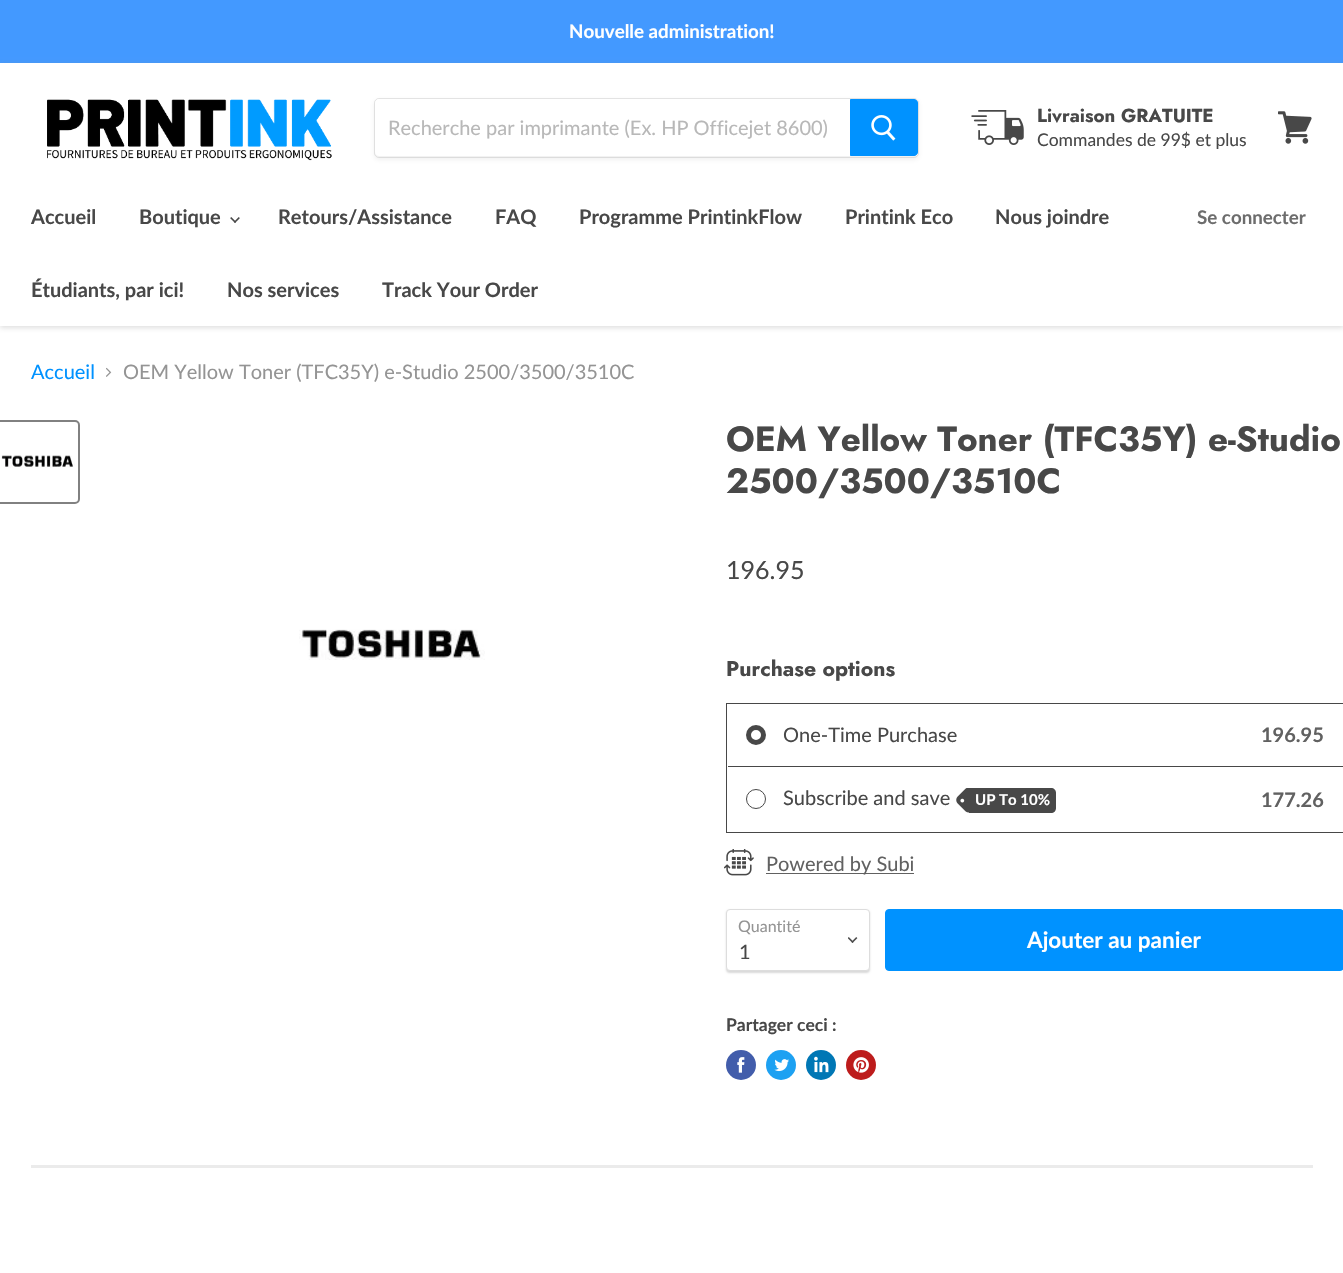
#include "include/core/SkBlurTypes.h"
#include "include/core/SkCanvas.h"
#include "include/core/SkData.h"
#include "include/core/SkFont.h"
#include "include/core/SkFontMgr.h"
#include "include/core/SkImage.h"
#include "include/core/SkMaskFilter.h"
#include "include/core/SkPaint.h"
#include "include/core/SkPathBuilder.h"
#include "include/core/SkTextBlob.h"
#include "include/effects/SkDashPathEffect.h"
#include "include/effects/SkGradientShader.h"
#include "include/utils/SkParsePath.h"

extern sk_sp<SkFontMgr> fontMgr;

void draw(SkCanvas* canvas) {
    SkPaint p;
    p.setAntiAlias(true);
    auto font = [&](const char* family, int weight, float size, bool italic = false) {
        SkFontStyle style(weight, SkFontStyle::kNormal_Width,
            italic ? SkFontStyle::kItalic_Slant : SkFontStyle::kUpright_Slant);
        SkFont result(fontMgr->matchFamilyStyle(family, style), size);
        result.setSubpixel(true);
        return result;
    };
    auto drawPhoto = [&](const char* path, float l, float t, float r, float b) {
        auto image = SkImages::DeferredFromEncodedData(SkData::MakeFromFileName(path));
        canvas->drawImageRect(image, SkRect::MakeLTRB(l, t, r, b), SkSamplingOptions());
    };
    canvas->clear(0xFFFFFFFF);
    p.setColor(0xFF4399FF);
    canvas->drawRect(SkRect::MakeLTRB(0, 0, 1343, 63), p);
    auto font1 = font("Lato", 700, 18.75f);
    p.setColor(0xFFFFFFFF);
    canvas->drawString("Nouvelle administration!", 569, 38, font1, p);
    canvas->save();
    canvas->clipPath(SkPathBuilder(SkPathFillType::kEvenOdd).moveTo(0, 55).lineTo(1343, 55).lineTo(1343, 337).lineTo(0, 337).close().moveTo(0, 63).lineTo(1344, 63).lineTo(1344, 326).lineTo(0, 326).close().detach(), true);
    p.setColor(0x40808080);
    p.setMaskFilter(SkMaskFilter::MakeBlur(kNormal_SkBlurStyle, 2.5f));
    canvas->drawRect(SkRect::MakeLTRB(0, 64, 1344, 328), p);
    p.setMaskFilter(nullptr);
    canvas->restore();
    drawPhoto("media/1.png", 47, 99, 332, 161);
    p.setColor(0x1C808080);
    p.setMaskFilter(SkMaskFilter::MakeBlur(kNormal_SkBlurStyle, 2));
    canvas->drawRoundRect(SkRect::MakeLTRB(374, 100, 919, 160), 5, 5, p);
    p.setMaskFilter(nullptr);
    p.setStyle(SkPaint::kStroke_Style);
    p.setStrokeWidth(1);
    p.setColor(0x33808080);
    canvas->drawRoundRect(SkRect::MakeLTRB(374.5f, 98.5f, 918.5f, 157.5f), 4.5f, 4.5f, p);
    p.setStyle(SkPaint::kFill_Style);
    p.setColor(0xFFFFFFFF);
    canvas->drawPath(SkPathBuilder().moveTo(379, 99).lineTo(850, 99).lineTo(850, 156).lineTo(379, 156).cubicTo(377, 156, 375, 154, 375, 152).lineTo(375, 103).cubicTo(375, 101, 377, 99, 379, 99).close().detach(), p);
    auto font2 = font("Lato", 400, 20);
    p.setColor(0xFFB8B8B8);
    canvas->drawString("Recherche par imprimante (Ex. HP Officejet 8600)", 388, 135, font2, p);
    p.setColor(0xFF0092FF);
    canvas->drawPath(SkPathBuilder().moveTo(850.5f, 99.5f).lineTo(914, 99.5f).cubicTo(916, 99.5f, 917.5f, 101, 917.5f, 103).lineTo(917.5f, 152).cubicTo(917.5f, 154, 916, 155.5f, 914, 155.5f).lineTo(850.5f, 155.5f).close().detach(), p);
    p.setStyle(SkPaint::kStroke_Style);
    canvas->drawPath(SkPathBuilder().moveTo(850.5f, 99.5f).lineTo(914, 99.5f).cubicTo(916, 99.5f, 917.5f, 101, 917.5f, 103).lineTo(917.5f, 152).cubicTo(917.5f, 154, 916, 155.5f, 914, 155.5f).lineTo(850.5f, 155.5f).close().detach(), p);
    drawPhoto("media/2.png", 871, 115, 896, 141);
    drawPhoto("media/3.png", 971, 110, 1024, 145);
    auto font3 = font("Jost", 700, 18.75f);
    p.setStyle(SkPaint::kFill_Style);
    p.setColor(0xFF484848);
    canvas->drawString("Livraison GRATUITE", 1037, 122, font3, p);
    auto font4 = font("Lato", 400, 17.5f);
    canvas->drawString("Commandes de 99$ et plus", 1037, 146, font4, p);
    drawPhoto("media/4.png", 1278, 111, 1312, 144);
    auto font5 = font("Lato", 700, 20);
    canvas->drawString("Accueil", 31, 224, font5, p);
    canvas->drawString("Boutique", 139, 224, font5, p);
    drawPhoto("media/5.png", 230, 217, 240, 223);
    {
        const struct { const char* s; float x, y; } items[] = {
            {"Retours/Assistance", 278, 224},
            {"FAQ", 495, 224},
            {"Programme PrintinkFlow", 579, 224},
            {"Printink Eco", 845, 224},
            {"Nous joindre", 995, 224},
            {"Étudiants, par ici!", 31, 297},
            {"Nos services", 227, 297},
            {"Track Your Order", 382, 297},
        };
        for (auto [s, x, y] : items) {
            canvas->drawString(s, x, y, font5, p);
        }
    }
    p.setColor(0xFF6D6D6D);
    canvas->drawString("Se connecter", 1197, 224, font1, p);
    p.setColor(0xFF0092FF);
    canvas->drawString("Accueil", 31, 379, font2, p);
    drawPhoto("media/6.png", 106, 367, 112, 377);
    p.setColor(0xFF949494);
    canvas->drawString("OEM Yellow Toner (TFC35Y) e-Studio 2500/3500/3510C", 123, 379, font2, p);
    p.setStyle(SkPaint::kStroke_Style);
    p.setStrokeWidth(2);
    p.setColor(0xFF818181);
    canvas->drawRoundRect(SkRect::MakeLTRB(-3, 421, 79, 503), 4, 4, p);
    drawPhoto("media/7.png", 1, 455, 75, 468);
    drawPhoto("media/8.png", 299, 629, 485, 660);
    auto font6 = font("Jost", 700, 35);
    p.setStyle(SkPaint::kFill_Style);
    p.setColor(0xFF484848);
    canvas->drawString("OEM Yellow Toner (TFC35Y) e-Studio", 726, 451, font6, p);
    canvas->drawString("2500/3500/3510C", 726, 493, font6, p);
    auto font7 = font("Lato", 400, 25);
    canvas->drawString("196.95", 726, 579, font7, p);
    auto font8 = font("Jost", 700, 21.25f);
    canvas->drawString("Purchase options", 726, 676, font8, p);
    p.setStyle(SkPaint::kStroke_Style);
    p.setStrokeWidth(1);
    canvas->drawRect(SkRect::MakeLTRB(726.5f, 703.5f, 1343.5f, 832.5f), p);
    p.setStyle(SkPaint::kFill_Style);
    canvas->drawRect(SkRect::MakeLTRB(728, 766, 1343, 767), p);
    p.setStyle(SkPaint::kStroke_Style);
    p.setStrokeWidth(5);
    canvas->drawCircle(756, 735, 7.5f, p);
    p.setStyle(SkPaint::kFill_Style);
    canvas->drawString("One-Time Purchase", 783, 742, font2, p);
    p.setColor(0xFF616161);
    canvas->drawString("196.95", 1261, 742, font5, p);
    p.setStyle(SkPaint::kStroke_Style);
    p.setStrokeWidth(1);
    p.setColor(0xFF484848);
    canvas->drawCircle(756, 799, 9.5f, p);
    p.setStyle(SkPaint::kFill_Style);
    canvas->drawString("Subscribe and save", 783, 805, font2, p);
    canvas->drawPath(SkPathBuilder().moveTo(969, 788).lineTo(1051, 788).cubicTo(1054, 788, 1056, 790, 1056, 793).lineTo(1056, 808).cubicTo(1056, 811, 1054, 813, 1051, 813).lineTo(969, 813).close().detach(), p);
    drawPhoto("media/9.png", 956, 788, 969, 813);
    auto font9 = font("Lato", 700, 15);
    p.setColor(0xFFFFFFFF);
    canvas->drawString("UP To 10%", 975, 805, font9, p);
    p.setColor(0xFF616161);
    canvas->drawString("177.26", 1261, 807, font5, p);
    drawPhoto("media/10.png", 724, 849, 754, 876);
    canvas->drawRect(SkRect::MakeLTRB(766, 873, 914, 874), p);
    canvas->drawString("Powered by Subi", 766, 871, font2, p);
    p.setColor(0x26000000);
    p.setMaskFilter(SkMaskFilter::MakeBlur(kNormal_SkBlurStyle, 1));
    canvas->drawRoundRect(SkRect::MakeLTRB(726, 910, 870, 973), 4, 4, p);
    p.setMaskFilter(nullptr);
    p.setColor(0xFFFFFFFF);
    canvas->drawRoundRect(SkRect::MakeLTRB(726.5f, 909.5f, 869.5f, 970.5f), 3.5f, 3.5f, p);
    p.setStyle(SkPaint::kStroke_Style);
    p.setColor(0xFFDDDDDD);
    canvas->drawRoundRect(SkRect::MakeLTRB(726.5f, 909.5f, 869.5f, 970.5f), 3.5f, 3.5f, p);
    auto font10 = font("Lato", 400, 16);
    p.setStyle(SkPaint::kFill_Style);
    p.setColor(0xFF949494);
    canvas->drawString("Quantité", 738, 932, font10, p);
    drawPhoto("media/11.png", 848, 937, 858, 943);
    p.setColor(0xFF484848);
    canvas->drawString("1", 739, 959, font2, p);
    p.setColor(0xFF0092FF);
    canvas->drawRoundRect(SkRect::MakeLTRB(885.5f, 909.5f, 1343.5f, 970.5f), 3.5f, 3.5f, p);
    p.setStyle(SkPaint::kStroke_Style);
    canvas->drawRoundRect(SkRect::MakeLTRB(885.5f, 909.5f, 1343.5f, 970.5f), 3.5f, 3.5f, p);
    auto font11 = font("Lato", 700, 22.5f);
    p.setStyle(SkPaint::kFill_Style);
    p.setColor(0xFFFFFFFF);
    canvas->drawString("Ajouter au panier", 1027, 948, font11, p);
    auto font12 = font("Lato", 700, 17.5f);
    p.setColor(0xFF484848);
    canvas->drawString("Partager ceci :", 726, 1031, font12, p);
    p.setColor(0xFF425DAB);
    canvas->drawCircle(741, 1065, 15, p);
    drawPhoto("media/12.png", 737, 1057, 745, 1073);
    p.setColor(0xFF1DA1F2);
    canvas->drawCircle(781, 1065, 15, p);
    drawPhoto("media/13.png", 774, 1059, 789, 1072);
    p.setColor(0xFF0077B5);
    canvas->drawCircle(821, 1065, 15, p);
    drawPhoto("media/14.png", 814, 1056, 829, 1073);
    p.setColor(0xFFBD1C1C);
    canvas->drawCircle(861, 1065, 15, p);
    drawPhoto("media/15.png", 853, 1057, 869, 1073);
    p.setColor(0x29808080);
    canvas->drawRect(SkRect::MakeLTRB(31, 1165, 1313, 1168), p);
}
